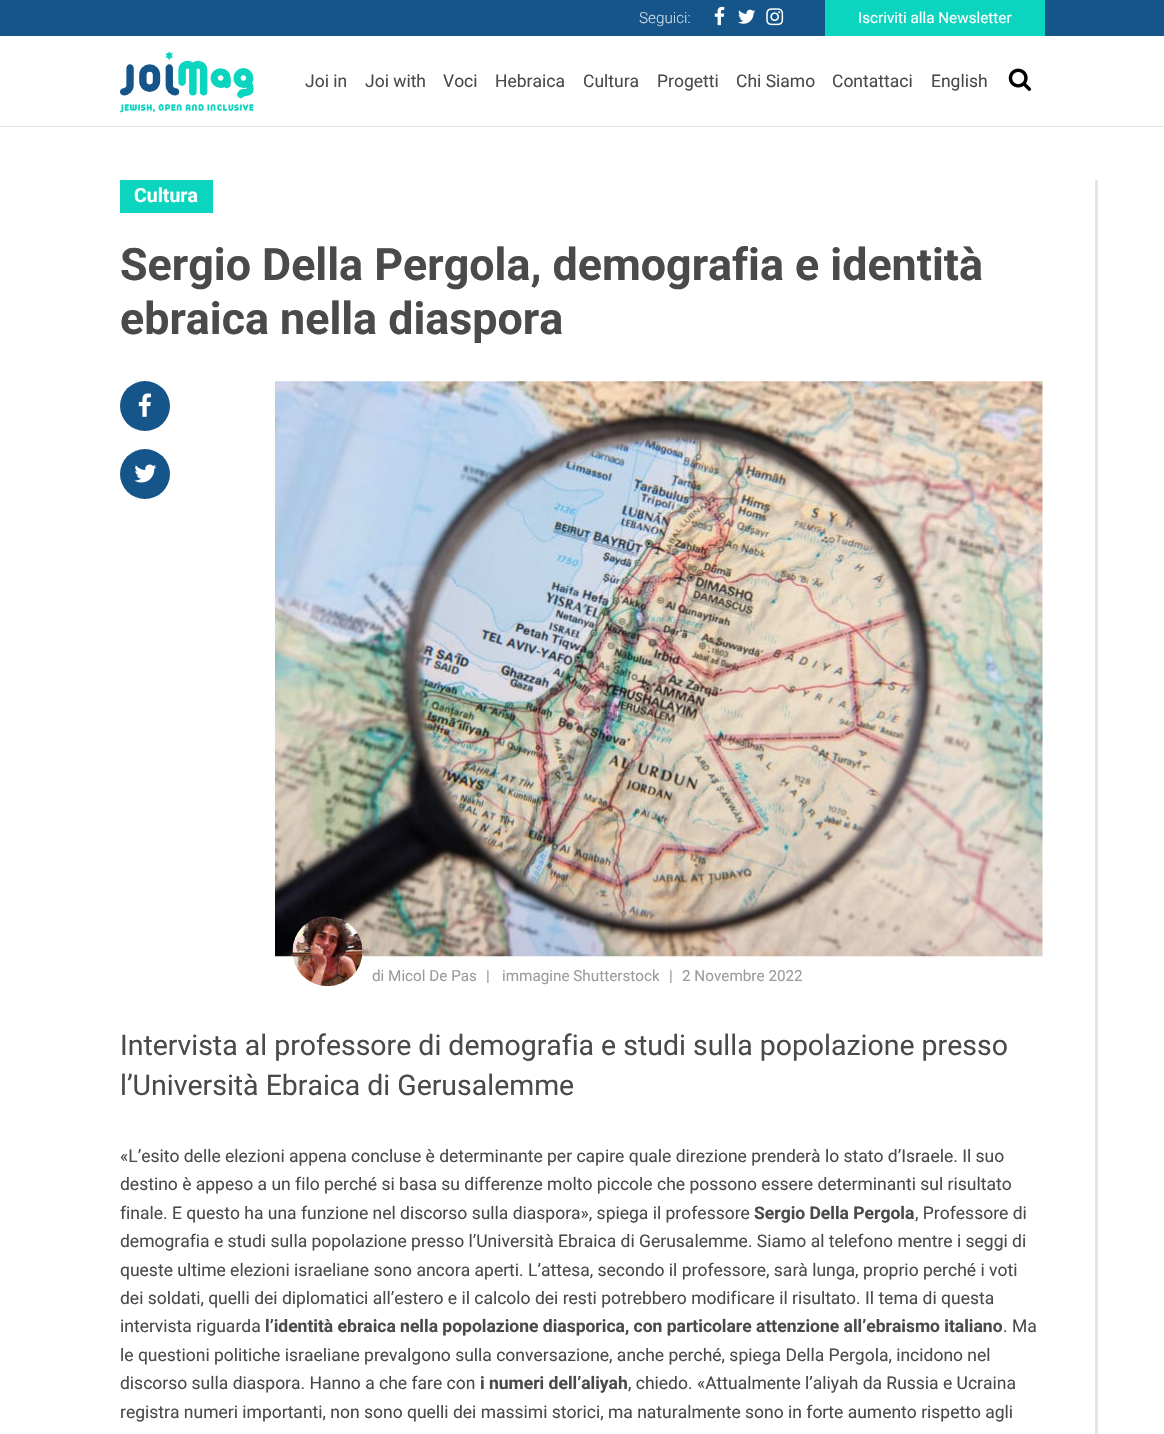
#include "include/core/SkBlurTypes.h"
#include "include/core/SkCanvas.h"
#include "include/core/SkData.h"
#include "include/core/SkFont.h"
#include "include/core/SkFontMgr.h"
#include "include/core/SkImage.h"
#include "include/core/SkMaskFilter.h"
#include "include/core/SkPaint.h"
#include "include/core/SkPathBuilder.h"
#include "include/core/SkTextBlob.h"
#include "include/effects/SkDashPathEffect.h"
#include "include/effects/SkGradientShader.h"
#include "include/utils/SkParsePath.h"

extern sk_sp<SkFontMgr> fontMgr;

void draw(SkCanvas* canvas) {
    SkPaint p;
    p.setAntiAlias(true);
    auto font = [&](const char* family, int weight, float size, bool italic = false) {
        SkFontStyle style(weight, SkFontStyle::kNormal_Width,
            italic ? SkFontStyle::kItalic_Slant : SkFontStyle::kUpright_Slant);
        SkFont result(fontMgr->matchFamilyStyle(family, style), size);
        result.setSubpixel(true);
        return result;
    };
    auto drawPhoto = [&](const char* path, float l, float t, float r, float b) {
        auto image = SkImages::DeferredFromEncodedData(SkData::MakeFromFileName(path));
        canvas->drawImageRect(image, SkRect::MakeLTRB(l, t, r, b), SkSamplingOptions());
    };
    canvas->clear(0xFFFFFFFF);
    p.setColor(0xFF155589);
    canvas->drawRect(SkRect::MakeLTRB(0, 0, 1164, 36), p);
    auto font1 = font("Roboto", 300, 15.25f);
    p.setColor(0xFFD0DDE7);
    canvas->drawString("Seguici:", 639, 23, font1, p);
    drawPhoto("media/1.png", 714, 6, 725, 26);
    drawPhoto("media/2.png", 738, 9, 756, 24);
    drawPhoto("media/3.png", 766, 8, 784, 26);
    p.setColor(0xFF0BD5BF);
    canvas->drawRect(SkRect::MakeLTRB(825, 0, 1045, 36), p);
    auto font2 = font("Roboto", 400, 15.25f);
    p.setColor(0xFFFFFFFF);
    canvas->drawString("Iscriviti alla Newsletter", 858, 23, font2, p);
    p.setColor(0xFFE5E5E5);
    canvas->drawRect(SkRect::MakeLTRB(0, 126, 1164, 127), p);
    drawPhoto("media/4.png", 120, 51, 254, 113);
    auto font3 = font("Roboto", 400, 17.5f);
    p.setColor(0xFF4A4A4A);
    {
        const struct { const char* s; float x, y; } items[] = {
            {"Joi in", 305, 87},
            {"Joi with", 365, 87},
            {"Voci", 443, 87},
            {"Hebraica", 495, 87},
            {"Cultura", 583, 87},
            {"Progetti", 657, 87},
            {"Chi Siamo", 736, 87},
            {"Contattaci", 832, 87},
            {"English", 931, 87},
        };
        for (auto [s, x, y] : items) {
            canvas->drawString(s, x, y, font3, p);
        }
    }
    drawPhoto("media/5.png", 1008, 68, 1032, 91);
    p.setColor(0xFFE5E5E5);
    canvas->drawRect(SkRect::MakeLTRB(1095, 180, 1098, 1434), p);
    p.setColor(0xFF0BD5BF);
    canvas->drawRect(SkRect::MakeLTRB(120, 180, 213, 213), p);
    auto font4 = font("Roboto", 700, 19.5f);
    p.setColor(0xFFFFFFFF);
    canvas->drawString("Cultura", 134, 202, font4, p);
    auto font5 = font("Roboto", 700, 44.8f);
    p.setColor(0xFF4A4A4A);
    canvas->drawString("Sergio Della Pergola, demografia e identità", 120, 280, font5, p);
    canvas->drawString("ebraica nella diaspora", 120, 334, font5, p);
    p.setColor(0xFF155589);
    canvas->drawCircle(145, 406, 25, p);
    drawPhoto("media/6.png", 138, 393, 151, 417);
    canvas->drawCircle(145, 474, 25, p);
    drawPhoto("media/7.png", 134, 464, 157, 483);
    drawPhoto("media/8.png", 275, 381, 1043, 957);
    drawPhoto("media/9.png", 292, 916, 363, 987);
    p.setColor(0xFF9B9B9B);
    {
        const struct { const char* s; float x, y; } items[] = {
            {"di Micol De Pas", 372, 981},
            {"|", 486, 981},
            {"immagine Shutterstock", 502, 981},
            {"|", 669, 981},
            {"2 Novembre 2022", 682, 981},
        };
        for (auto [s, x, y] : items) {
            canvas->drawString(s, x, y, font2, p);
        }
    }
    auto font6 = font("Roboto", 400, 28.45f);
    p.setColor(0xFF4A4A4A);
    canvas->drawString("Intervista al professore di demografia e studi sulla popolazione presso", 120, 1055, font6, p);
    canvas->drawString("l’Università Ebraica di Gerusalemme", 120, 1095, font6, p);
    {
        const struct { const char* s; float x, y; } items[] = {
            {"«L’esito delle elezioni appena concluse è determinante per capire quale direzione prenderà lo stato d’Israele. Il suo", 120, 1162},
            {"destino è appeso a un filo perché si basa su differenze molto piccole che possono essere determinanti sul risultato", 120, 1190},
            {"finale. E questo ha una funzione nel discorso sulla diaspora», spiega il professore", 120, 1219},
        };
        for (auto [s, x, y] : items) {
            canvas->drawString(s, x, y, font3, p);
        }
    }
    auto font7 = font("Roboto", 700, 17.5f);
    canvas->drawString("Sergio Della Pergola", 754, 1219, font7, p);
    {
        const struct { const char* s; float x, y; } items[] = {
            {", Professore di", 915, 1219},
            {"demografia e studi sulla popolazione presso l’Università Ebraica di Gerusalemme. Siamo al telefono mentre i seggi di", 120, 1247},
            {"queste ultime elezioni israeliane sono ancora aperti. L’attesa, secondo il professore, sarà lunga, proprio perché i voti", 120, 1276},
            {"dei soldati, quelli dei diplomatici all’estero e il calcolo dei resti potrebbero modificare il risultato. Il tema di questa", 120, 1304},
            {"intervista riguarda", 120, 1332},
        };
        for (auto [s, x, y] : items) {
            canvas->drawString(s, x, y, font3, p);
        }
    }
    canvas->drawString("l’identità ebraica nella popolazione diasporica, con particolare attenzione all’ebraismo italiano", 265, 1332, font7, p);
    {
        const struct { const char* s; float x, y; } items[] = {
            {". Ma", 1003, 1332},
            {"le questioni politiche israeliane prevalgono sulla conversazione, anche perché, spiega Della Pergola, incidono nel", 120, 1361},
            {"discorso sulla diaspora. Hanno a che fare con", 120, 1389},
        };
        for (auto [s, x, y] : items) {
            canvas->drawString(s, x, y, font3, p);
        }
    }
    canvas->drawString("i numeri dell’aliyah", 480, 1389, font7, p);
    canvas->drawString(", chiedo. «Attualmente l’aliyah da Russia e Ucraina", 628, 1389, font3, p);
    canvas->drawString("registra numeri importanti, non sono quelli dei massimi storici, ma naturalmente sono in forte aumento rispetto agli", 120, 1418, font3, p);
}
